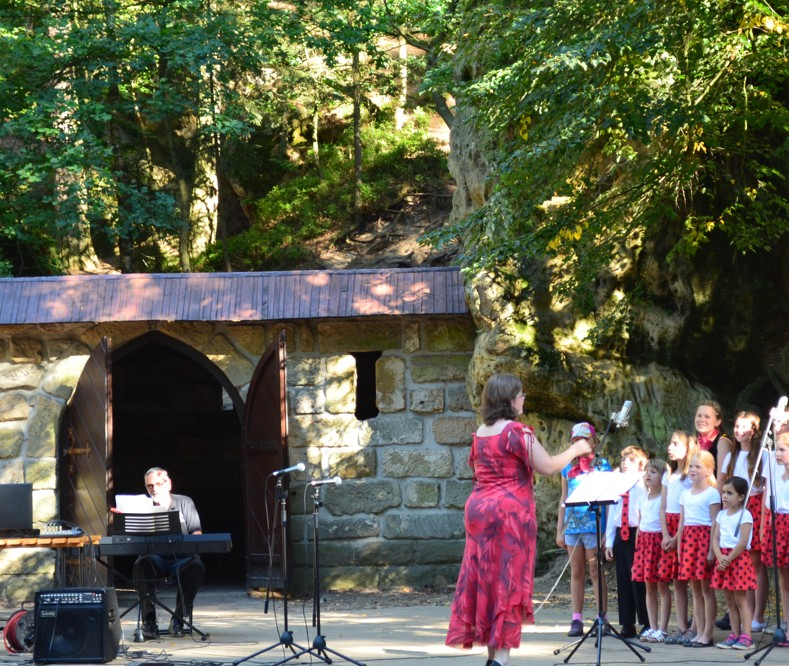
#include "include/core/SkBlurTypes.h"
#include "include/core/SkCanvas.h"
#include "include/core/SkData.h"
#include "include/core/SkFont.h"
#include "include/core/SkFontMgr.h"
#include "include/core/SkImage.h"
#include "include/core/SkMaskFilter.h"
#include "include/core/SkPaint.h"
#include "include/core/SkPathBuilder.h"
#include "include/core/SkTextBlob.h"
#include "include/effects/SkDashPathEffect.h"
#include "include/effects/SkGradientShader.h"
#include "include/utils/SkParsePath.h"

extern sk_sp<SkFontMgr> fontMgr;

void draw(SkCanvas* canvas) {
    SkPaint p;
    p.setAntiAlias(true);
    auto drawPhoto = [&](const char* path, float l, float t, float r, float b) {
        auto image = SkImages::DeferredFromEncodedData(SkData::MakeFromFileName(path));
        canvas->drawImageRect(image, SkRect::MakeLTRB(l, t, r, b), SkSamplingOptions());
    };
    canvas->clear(0xFFFFFFFF);
    drawPhoto("media/1.png", 0, 0, 789, 666);
}
